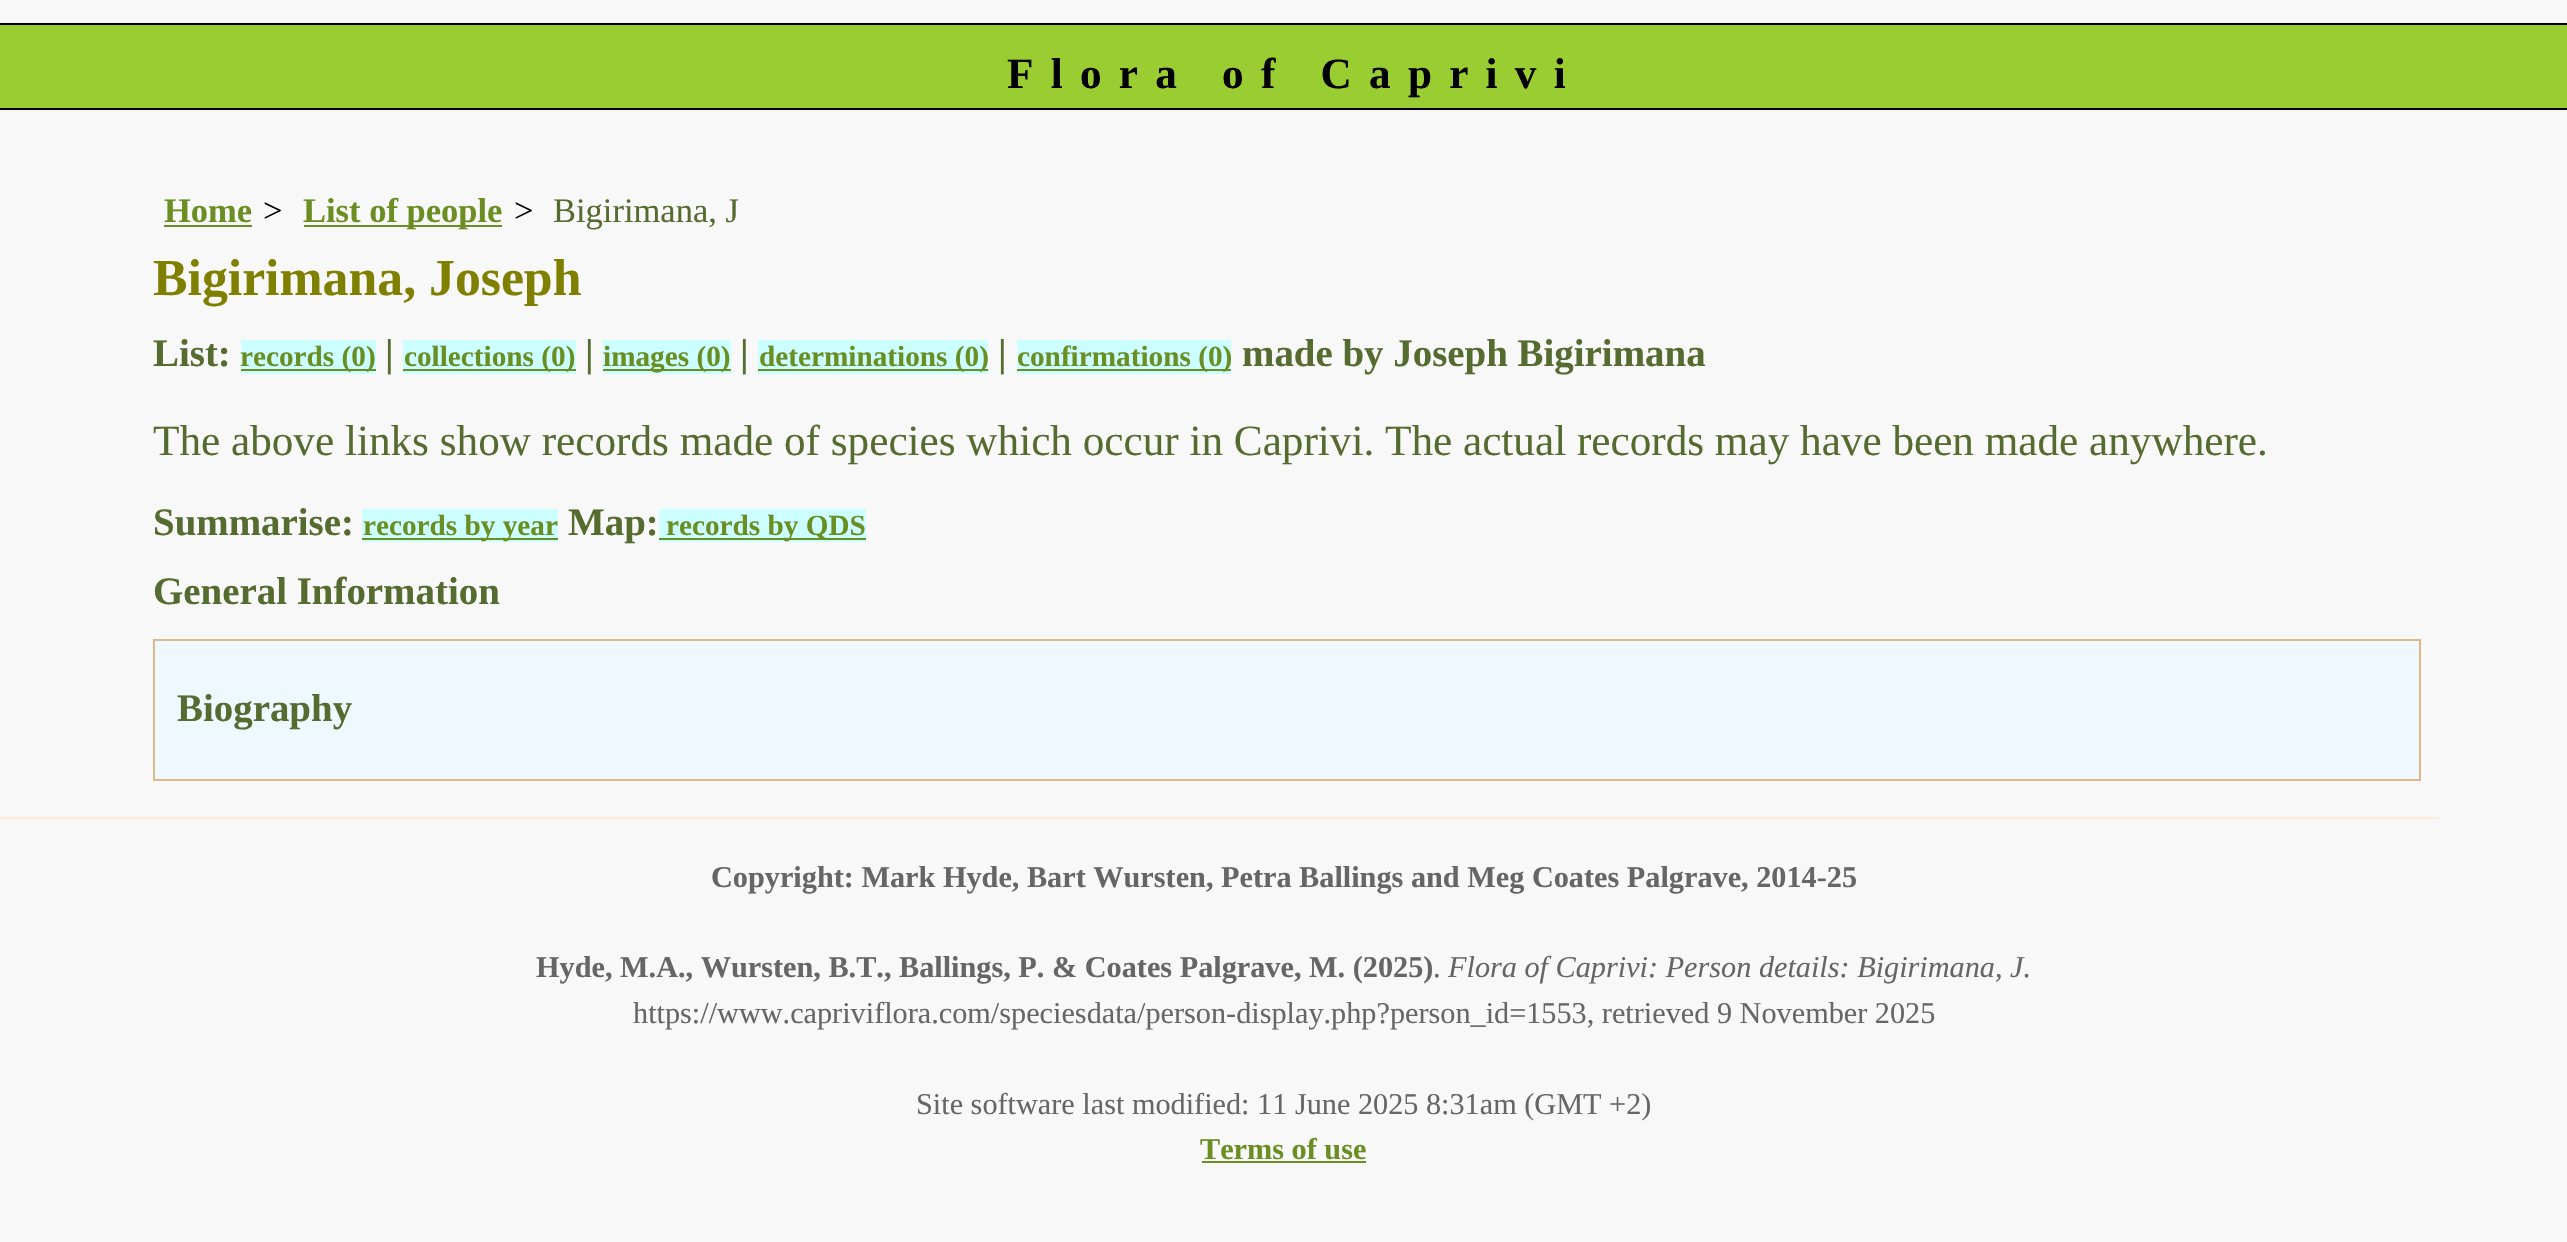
#include "include/core/SkBlurTypes.h"
#include "include/core/SkCanvas.h"
#include "include/core/SkData.h"
#include "include/core/SkFont.h"
#include "include/core/SkFontMgr.h"
#include "include/core/SkImage.h"
#include "include/core/SkMaskFilter.h"
#include "include/core/SkPaint.h"
#include "include/core/SkPathBuilder.h"
#include "include/core/SkTextBlob.h"
#include "include/effects/SkDashPathEffect.h"
#include "include/effects/SkGradientShader.h"
#include "include/utils/SkParsePath.h"

extern sk_sp<SkFontMgr> fontMgr;

void draw(SkCanvas* canvas) {
    SkPaint p;
    p.setAntiAlias(true);
    auto font = [&](const char* family, int weight, float size, bool italic = false) {
        SkFontStyle style(weight, SkFontStyle::kNormal_Width,
            italic ? SkFontStyle::kItalic_Slant : SkFontStyle::kUpright_Slant);
        SkFont result(fontMgr->matchFamilyStyle(family, style), size);
        result.setSubpixel(true);
        return result;
    };
    auto drawTracked = [&](const char* s, float x, float y, const SkFont& font, const SkPaint& ink, float letter, float word) {
        std::vector<SkGlyphID> glyphs(font.countText(s, strlen(s), SkTextEncoding::kUTF8));
        std::vector<float> xs(glyphs.size());
        font.textToGlyphs(s, strlen(s), SkTextEncoding::kUTF8, glyphs);
        font.getXPos(glyphs, xs, x);
        float extra = 0;
        for (size_t i = 0; i < glyphs.size(); i++) {
            xs[i] += extra;
            extra += letter + word * (glyphs[i] == font.unicharToGlyph(' '));
        }
        canvas->drawTextBlob(SkTextBlob::MakeFromPosHGlyphs(glyphs, xs, y, font), 0, 0, ink);
    };
    canvas->clear(0xFFF8F8F8);
    {
        const struct { float l, t, r, b; SkColor color; } items[] = {
            {0, 25, 2567, 108, 0xFF9ACD32},
            {0, 23, 2567, 25, 0xFF000000},
            {0, 108, 2567, 110, 0xFF000000},
        };
        for (auto [l, t, r, b, color] : items) {
            p.setColor(color);
            canvas->drawRect(SkRect::MakeLTRB(l, t, r, b), p);
        }
    }
    auto font1 = font("Liberation Serif", 700, 43.2f);
    drawTracked("Flora of Caprivi", 1007, 88, font1, p, 17.25f, 0);
    auto font2 = font("Liberation Serif", 700, 34.5f);
    p.setColor(0xFF6B8E23);
    canvas->drawString("Home", 164, 222, font2, p);
    canvas->drawRect(SkRect::MakeLTRB(164, 225, 252, 227), p);
    auto font3 = font("Liberation Serif", 400, 34.5f);
    p.setColor(0xFF000000);
    canvas->drawString(">", 263, 222, font3, p);
    p.setColor(0xFF6B8E23);
    canvas->drawRect(SkRect::MakeLTRB(304, 225, 502, 227), p);
    canvas->drawString("List of people", 303, 222, font2, p);
    p.setColor(0xFF000000);
    canvas->drawString(">", 514, 222, font3, p);
    p.setColor(0xFF556B2F);
    canvas->drawString("Bigirimana, J", 553, 222, font3, p);
    auto font4 = font("Liberation Serif", 700, 51.75f);
    p.setColor(0xFF808000);
    canvas->drawString("Bigirimana, Joseph", 153, 295, font4, p);
    auto font5 = font("Liberation Serif", 700, 38.9f);
    p.setColor(0xFF556B2F);
    canvas->drawString("List:", 153, 366, font5, p);
    p.setColor(0xFFCCFFFF);
    canvas->drawRect(SkRect::MakeLTRB(241, 340, 376, 374), p);
    p.setColor(0xFF6B8E23);
    canvas->drawRect(SkRect::MakeLTRB(241, 369, 376, 371), p);
    auto font6 = font("Liberation Serif", 700, 29.25f);
    canvas->drawString("records (0)", 240, 366, font6, p);
    p.setColor(0xFF556B2F);
    canvas->drawString("|", 385, 366, font5, p);
    p.setColor(0xFFCCFFFF);
    canvas->drawRect(SkRect::MakeLTRB(403, 340, 576, 374), p);
    p.setColor(0xFF6B8E23);
    canvas->drawRect(SkRect::MakeLTRB(403, 369, 576, 371), p);
    canvas->drawString("collections (0)", 404, 366, font6, p);
    p.setColor(0xFF556B2F);
    canvas->drawString("|", 585, 366, font5, p);
    p.setColor(0xFFCCFFFF);
    canvas->drawRect(SkRect::MakeLTRB(603, 340, 731, 374), p);
    p.setColor(0xFF6B8E23);
    canvas->drawRect(SkRect::MakeLTRB(603, 369, 731, 371), p);
    canvas->drawString("images (0)", 603, 366, font6, p);
    p.setColor(0xFF556B2F);
    canvas->drawString("|", 740, 366, font5, p);
    p.setColor(0xFFCCFFFF);
    canvas->drawRect(SkRect::MakeLTRB(758, 340, 988, 374), p);
    p.setColor(0xFF6B8E23);
    canvas->drawRect(SkRect::MakeLTRB(758, 369, 988, 371), p);
    canvas->drawString("determinations (0)", 759, 366, font6, p);
    p.setColor(0xFF556B2F);
    canvas->drawString("|", 998, 366, font5, p);
    p.setColor(0xFFCCFFFF);
    canvas->drawRect(SkRect::MakeLTRB(1017, 340, 1231, 374), p);
    p.setColor(0xFF6B8E23);
    canvas->drawRect(SkRect::MakeLTRB(1017, 369, 1231, 371), p);
    canvas->drawString("confirmations (0)", 1017, 366, font6, p);
    p.setColor(0xFF556B2F);
    canvas->drawString("made by Joseph Bigirimana", 1242, 366, font5, p);
    auto font7 = font("Liberation Serif", 400, 43.2f);
    canvas->drawString("The above links show records made of species which occur in Caprivi. The actual records may have been made anywhere.", 153, 455, font7, p);
    canvas->drawString("Summarise:", 153, 535, font5, p);
    p.setColor(0xFFCCFFFF);
    canvas->drawRect(SkRect::MakeLTRB(362, 509, 558, 542), p);
    p.setColor(0xFF6B8E23);
    canvas->drawRect(SkRect::MakeLTRB(362, 538, 558, 540), p);
    canvas->drawString("records by year", 363, 535, font6, p);
    p.setColor(0xFF556B2F);
    canvas->drawString("Map:", 568, 535, font5, p);
    p.setColor(0xFFCCFFFF);
    canvas->drawRect(SkRect::MakeLTRB(659, 509, 866, 542), p);
    p.setColor(0xFF6B8E23);
    canvas->drawRect(SkRect::MakeLTRB(659, 538, 866, 540), p);
    canvas->drawString("records by QDS", 666, 535, font6, p);
    p.setColor(0xFF556B2F);
    canvas->drawString("General Information", 153, 604, font5, p);
    {
        const struct { float l, t, r, b; SkColor color; } items[] = {
            {153, 639, 2421, 641, 0xFFDEB887},
            {2419, 639, 2421, 781, 0xFFDEB887},
            {153, 779, 2421, 781, 0xFFDEB887},
            {153, 639, 155, 781, 0xFFDEB887},
            {155, 641, 2419, 779, 0xFFF0F8FF},
        };
        for (auto [l, t, r, b, color] : items) {
            p.setColor(color);
            canvas->drawRect(SkRect::MakeLTRB(l, t, r, b), p);
        }
    }
    p.setColor(0xFF556B2F);
    canvas->drawString("Biography", 177, 721, font5, p);
    p.setColor(0xFFFAEDD4);
    canvas->drawRect(SkRect::MakeLTRB(0, 817, 2439, 819), p);
    auto font8 = font("Liberation Serif", 700, 30.25f);
    p.setColor(0xFF666666);
    canvas->drawString("Copyright: Mark Hyde, Bart Wursten, Petra Ballings and Meg Coates Palgrave, 2014-25", 711, 887, font8, p);
    canvas->drawString("Hyde, M.A., Wursten, B.T., Ballings, P. & Coates Palgrave, M. (2025)", 536, 977, font8, p);
    auto font9 = font("Liberation Serif", 400, 30.25f);
    canvas->drawString(".", 1433, 977, font9, p);
    auto font10 = font("Liberation Serif", 400, 30.25f, true);
    canvas->drawString("Flora of Caprivi: Person details: Bigirimana, J.", 1448, 977, font10, p);
    canvas->drawString("https://www.capriviflora.com/speciesdata/person-display.php?person_id=1553, retrieved 9 November 2025", 633, 1023, font9, p);
    canvas->drawString("Site software last modified: 11 June 2025 8:31am (GMT +2)", 916, 1114, font9, p);
    p.setColor(0xFF6B8E23);
    canvas->drawString("Terms of use", 1200, 1159, font8, p);
    canvas->drawRect(SkRect::MakeLTRB(1202, 1161, 1366, 1163), p);
}
